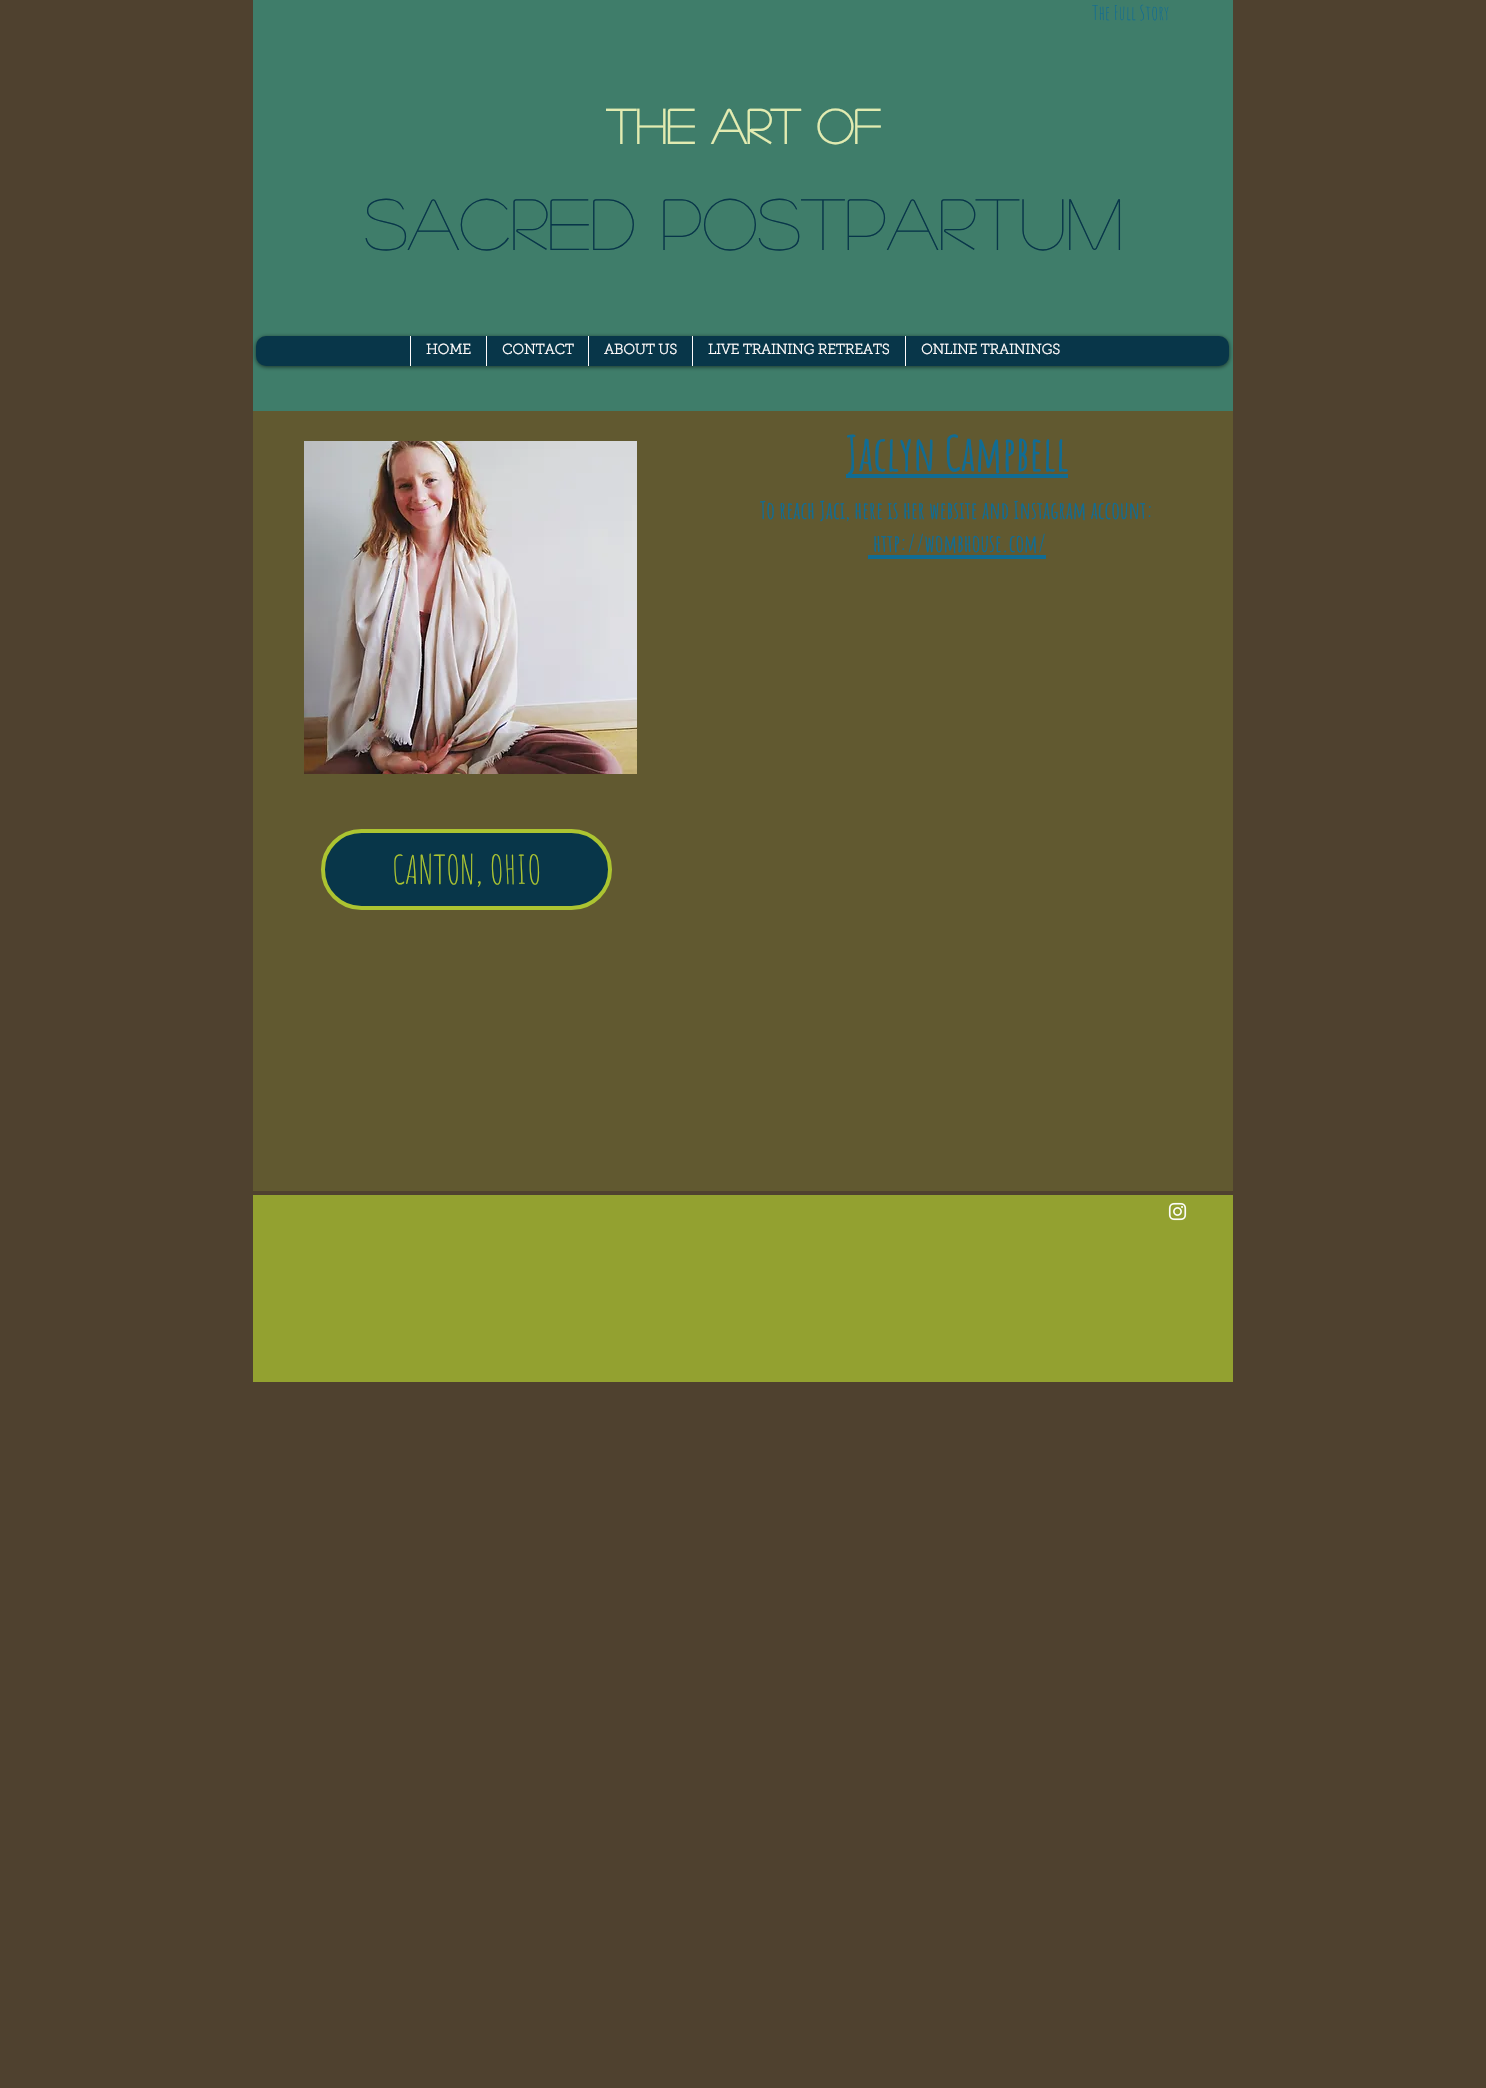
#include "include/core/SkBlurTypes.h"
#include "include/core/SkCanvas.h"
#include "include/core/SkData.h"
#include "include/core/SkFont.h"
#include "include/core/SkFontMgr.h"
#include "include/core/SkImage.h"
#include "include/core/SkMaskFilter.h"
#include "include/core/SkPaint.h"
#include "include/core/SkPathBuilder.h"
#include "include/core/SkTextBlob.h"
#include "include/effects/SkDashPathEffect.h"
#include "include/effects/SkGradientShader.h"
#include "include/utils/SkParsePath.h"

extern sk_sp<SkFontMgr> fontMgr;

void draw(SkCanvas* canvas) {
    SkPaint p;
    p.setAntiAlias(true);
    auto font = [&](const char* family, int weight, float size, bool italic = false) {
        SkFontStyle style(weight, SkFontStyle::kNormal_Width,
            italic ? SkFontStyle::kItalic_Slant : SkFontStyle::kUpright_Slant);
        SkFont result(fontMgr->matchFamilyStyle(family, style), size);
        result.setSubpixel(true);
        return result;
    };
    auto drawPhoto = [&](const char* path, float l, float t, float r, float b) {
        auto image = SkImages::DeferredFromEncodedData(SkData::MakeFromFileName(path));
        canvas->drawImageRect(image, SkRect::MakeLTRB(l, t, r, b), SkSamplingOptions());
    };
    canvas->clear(0xFF4F412F);
    p.setColor(0xFF3F7D6A);
    canvas->drawRect(SkRect::MakeLTRB(253, 0, 1233, 411), p);
    auto font1 = font("Amatic SC", 400, 20);
    p.setColor(0xFF116C93);
    canvas->drawString("The Full Story", 1092, 20, font1, p);
    auto font2 = font("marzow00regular", 700, 48);
    p.setColor(0xFFE2EBB1);
    canvas->drawString("The Art of", 606, 144, font2, p);
    auto font3 = font("marzow00regular", 400, 72);
    p.setColor(0xFF083649);
    canvas->drawString("Sacred Postpartum", 364, 250, font3, p);
    p.setColor(0x99000000);
    p.setMaskFilter(SkMaskFilter::MakeBlur(kNormal_SkBlurStyle, 2));
    canvas->drawRoundRect(SkRect::MakeLTRB(256, 337, 1229, 367), 10, 10, p);
    p.setMaskFilter(nullptr);
    p.setColor(0xFF083649);
    canvas->drawRoundRect(SkRect::MakeLTRB(256, 336, 1229, 366), 10, 10, p);
    p.setColor(0xFFFFFBFB);
    canvas->drawRect(SkRect::MakeLTRB(410, 336, 411, 366), p);
    auto font4 = font("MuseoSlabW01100", 700, 14);
    canvas->drawString("HOME", 426, 354, font4, p);
    canvas->drawRect(SkRect::MakeLTRB(486, 336, 487, 366), p);
    canvas->drawString("CONTACT", 502, 354, font4, p);
    canvas->drawRect(SkRect::MakeLTRB(588, 336, 589, 366), p);
    canvas->drawString("ABOUT US", 604, 354, font4, p);
    canvas->drawRect(SkRect::MakeLTRB(692, 336, 693, 366), p);
    canvas->drawString("LIVE TRAINING RETREATS", 708, 354, font4, p);
    canvas->drawRect(SkRect::MakeLTRB(905, 336, 906, 366), p);
    canvas->drawString("ONLINE TRAININGS", 921, 354, font4, p);
    p.setColor(0xFF615930);
    canvas->drawRect(SkRect::MakeLTRB(253, 411, 1233, 1191), p);
    drawPhoto("media/1.png", 304, 441, 637, 774);
    p.setColor(0xFF116C93);
    canvas->drawRect(SkRect::MakeLTRB(846, 474, 1068, 478), p);
    auto font5 = font("Amatic SC", 700, 48);
    canvas->drawString("Jaclyn Campbell", 846, 471, font5, p);
    auto font6 = font("Amatic SC", 700, 24);
    canvas->drawString("To reach Jaci, here is her website and Instagram account:", 760, 519, font6, p);
    canvas->drawString("http://wombhouse.com/", 873, 552, font6, p);
    canvas->drawRect(SkRect::MakeLTRB(868, 555, 1046, 559), p);
    p.setColor(0xFF083649);
    canvas->drawRoundRect(SkRect::MakeLTRB(323, 831, 610, 908), 38.5f, 38.5f, p);
    p.setStyle(SkPaint::kStroke_Style);
    p.setStrokeWidth(4);
    p.setColor(0xFFACC431);
    canvas->drawRoundRect(SkRect::MakeLTRB(323, 831, 610, 908), 38.5f, 38.5f, p);
    auto font7 = font("Amatic SC", 400, 39);
    p.setStyle(SkPaint::kFill_Style);
    canvas->drawString("CANTON, OHIO", 392, 884, font7, p);
    p.setColor(0xFF93A130);
    canvas->drawRect(SkRect::MakeLTRB(253, 1195, 1233, 1382), p);
    drawPhoto("media/2.png", 1168, 1202, 1187, 1221);
}
